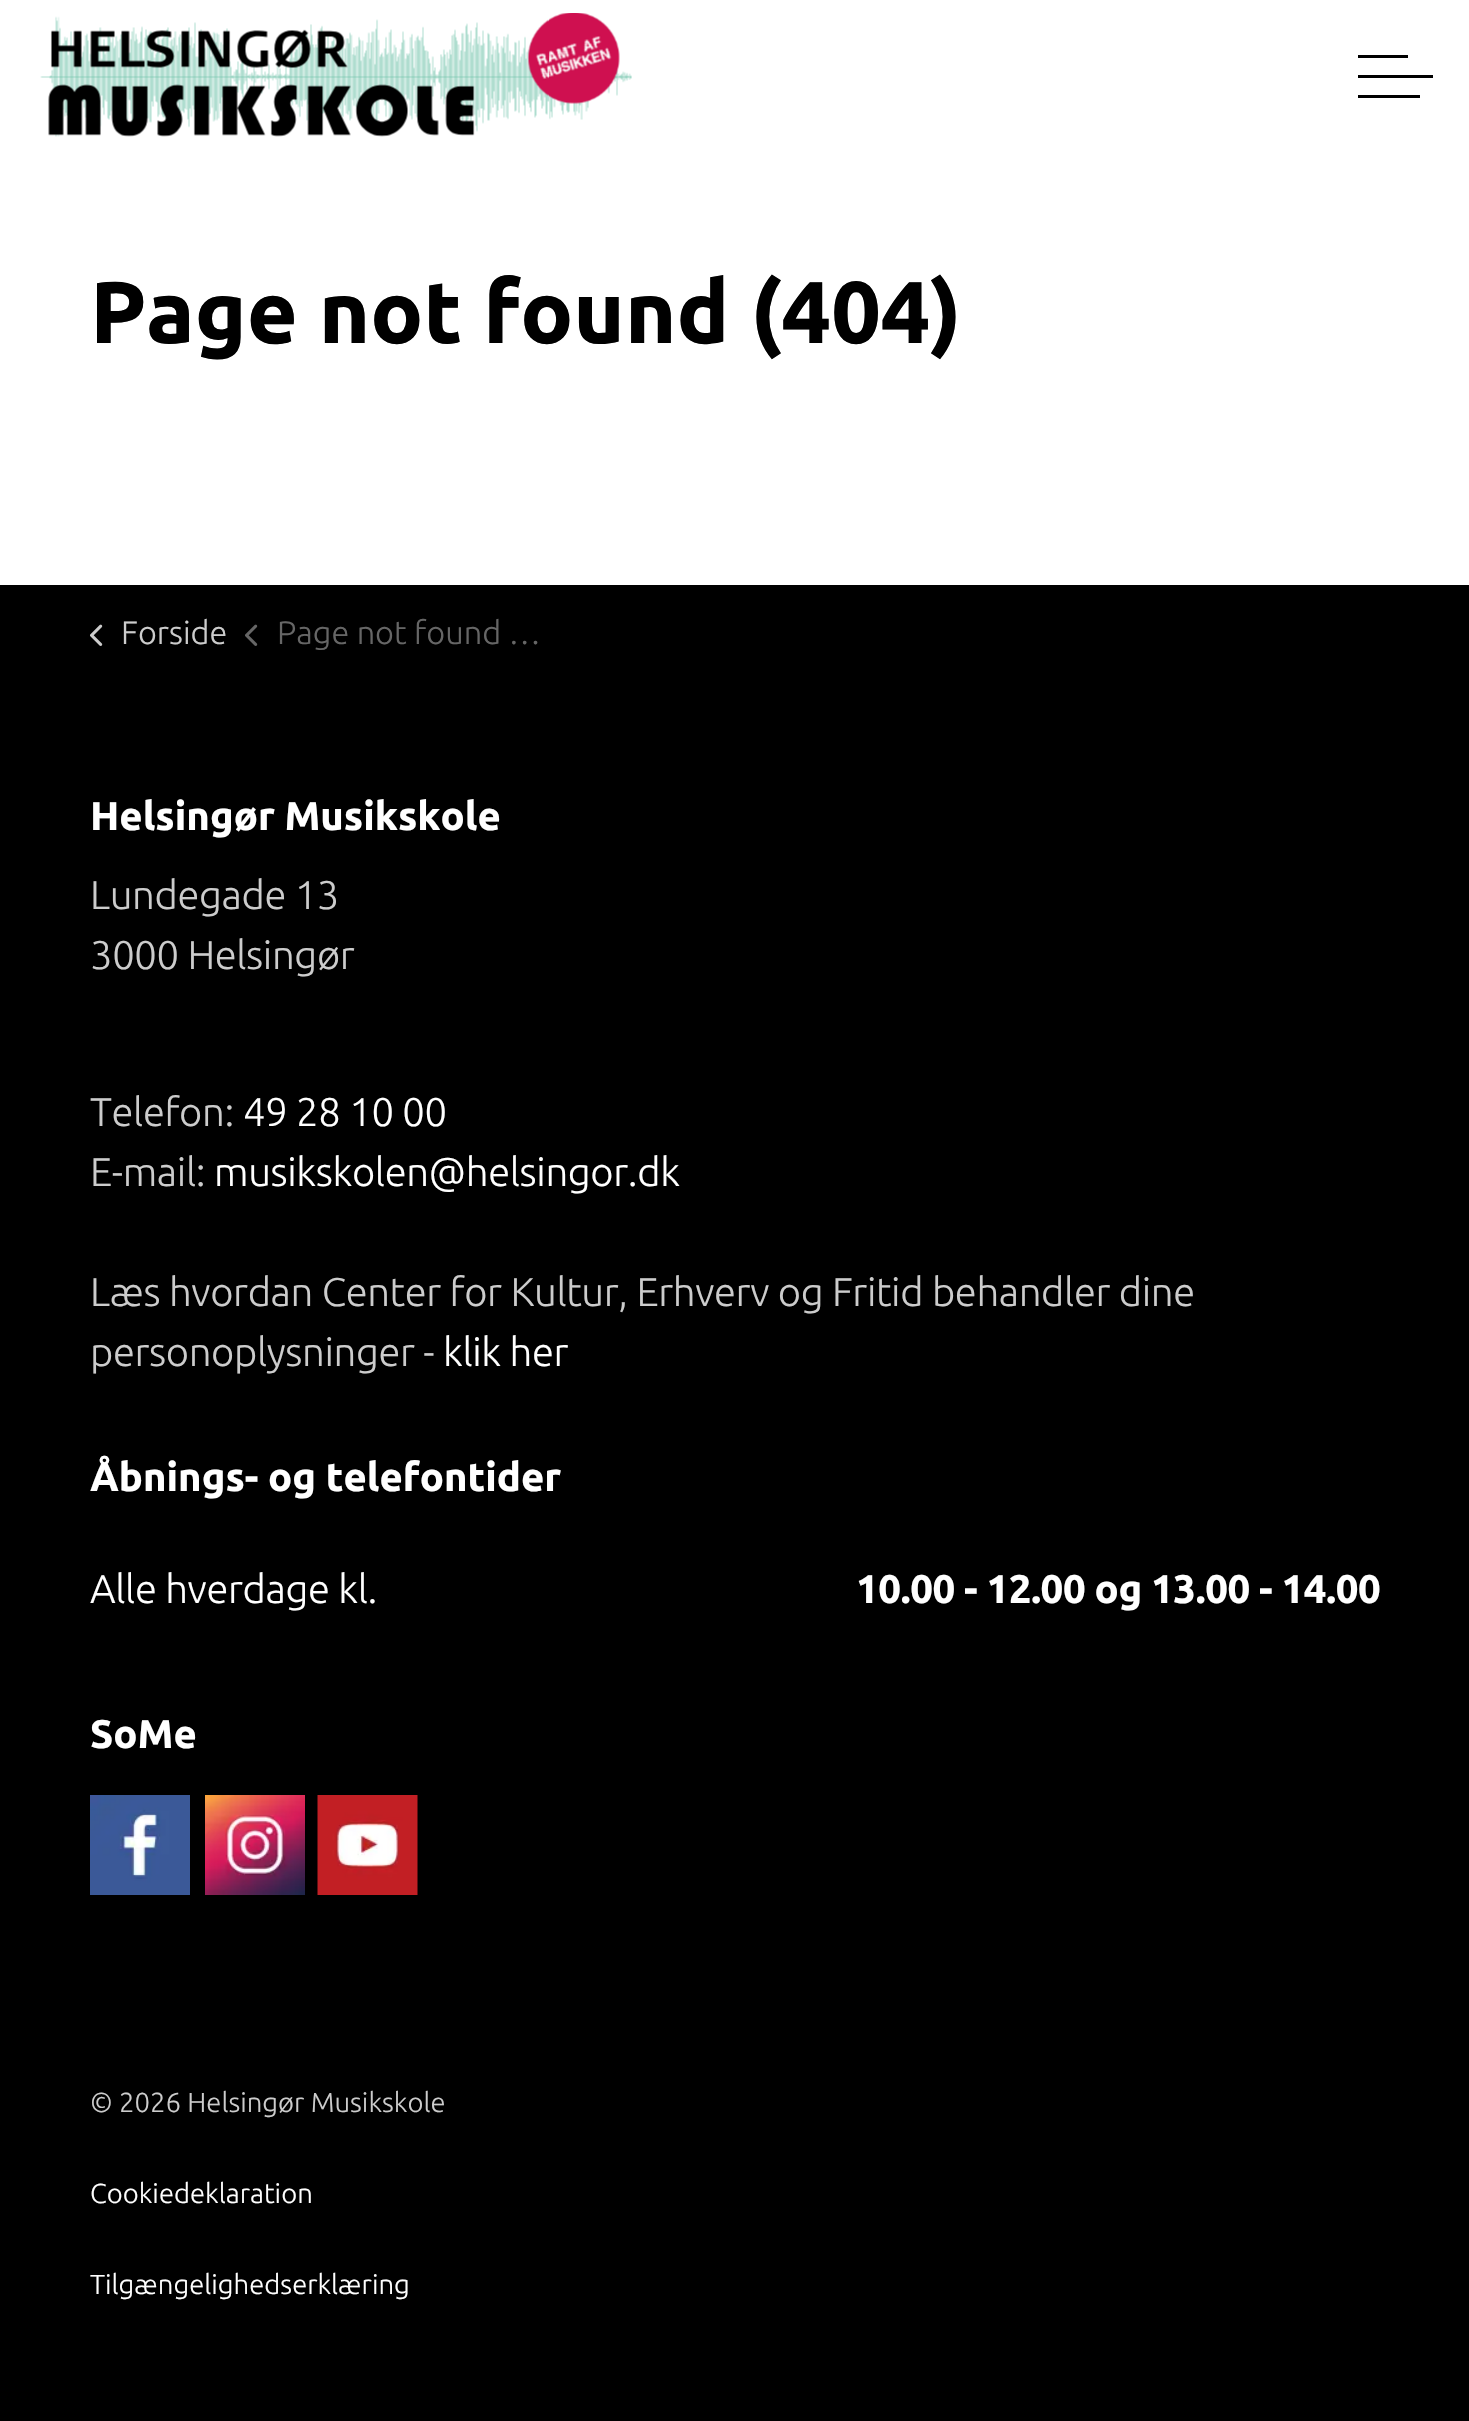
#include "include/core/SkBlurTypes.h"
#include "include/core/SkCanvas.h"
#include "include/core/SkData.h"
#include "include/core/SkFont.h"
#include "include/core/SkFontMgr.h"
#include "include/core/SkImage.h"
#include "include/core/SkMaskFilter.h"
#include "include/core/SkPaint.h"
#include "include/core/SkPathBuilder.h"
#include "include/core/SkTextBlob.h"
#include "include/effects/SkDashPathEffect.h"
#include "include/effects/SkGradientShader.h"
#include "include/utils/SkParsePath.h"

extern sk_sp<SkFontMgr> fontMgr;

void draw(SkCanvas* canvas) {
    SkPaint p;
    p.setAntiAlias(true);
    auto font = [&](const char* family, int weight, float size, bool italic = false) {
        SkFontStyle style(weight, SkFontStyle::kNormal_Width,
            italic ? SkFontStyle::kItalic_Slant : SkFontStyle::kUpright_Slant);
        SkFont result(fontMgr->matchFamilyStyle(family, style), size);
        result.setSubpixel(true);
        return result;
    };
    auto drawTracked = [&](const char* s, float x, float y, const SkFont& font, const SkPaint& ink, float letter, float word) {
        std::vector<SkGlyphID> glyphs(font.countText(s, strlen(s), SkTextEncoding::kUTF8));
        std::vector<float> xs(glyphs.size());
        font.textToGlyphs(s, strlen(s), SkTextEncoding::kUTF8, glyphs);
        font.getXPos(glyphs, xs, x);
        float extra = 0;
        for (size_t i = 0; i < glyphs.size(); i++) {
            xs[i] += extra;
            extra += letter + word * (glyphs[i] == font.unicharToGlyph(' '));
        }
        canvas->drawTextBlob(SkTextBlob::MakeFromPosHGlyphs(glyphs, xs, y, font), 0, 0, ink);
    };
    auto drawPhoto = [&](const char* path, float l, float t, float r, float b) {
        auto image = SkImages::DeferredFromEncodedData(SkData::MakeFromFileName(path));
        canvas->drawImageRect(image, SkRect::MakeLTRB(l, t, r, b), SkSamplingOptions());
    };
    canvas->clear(0xFFFFFFFF);
    drawPhoto("media/1.png", 40, 13, 632, 137);
    {
        const struct { float l, t, r, b; SkColor color; } items[] = {
            {1358, 75, 1433, 78, 0xFF000000},
            {1358, 55, 1408, 58, 0xFF000000},
            {1358, 95, 1420, 98, 0xFF000000},
        };
        for (auto [l, t, r, b, color] : items) {
            p.setColor(color);
            canvas->drawRect(SkRect::MakeLTRB(l, t, r, b), p);
        }
    }
    auto font1 = font("Ubuntu", 700, 87.5f);
    canvas->drawString("Page not found (404)", 90, 343, font1, p);
    canvas->drawRect(SkRect::MakeLTRB(0, 585, 1469, 2421), p);
    drawPhoto("media/2.png", 90, 624, 103, 646);
    auto font2 = font("Ubuntu", 300, 32.5f);
    p.setColor(0xFFCCCCCC);
    canvas->drawString("Forside", 121, 644, font2, p);
    drawPhoto("media/3.png", 245, 624, 258, 646);
    p.setColor(0xFF666666);
    canvas->drawString("Page not found …", 277, 644, font2, p);
    auto font3 = font("Ubuntu", 700, 40);
    p.setColor(0xFFFFFFFF);
    canvas->drawString("Helsingør Musikskole", 90, 830, font3, p);
    auto font4 = font("Ubuntu", 300, 40);
    p.setColor(0xFFCCCCCC);
    {
        const struct { const char* s; float x, y; } items[] = {
            {"Lundegade 13", 90, 909},
            {"3000 Helsingør", 90, 969},
            {"Telefon:", 90, 1126},
        };
        for (auto [s, x, y] : items) {
            drawTracked(s, x, y, font4, p, -0.38f, 0);
        }
    }
    p.setColor(0xFFFFFFFF);
    drawTracked("49 28 10 00", 243, 1126, font4, p, -0.38f, 0);
    p.setColor(0xFFCCCCCC);
    drawTracked("E-mail:", 90, 1186, font4, p, -0.38f, 0);
    p.setColor(0xFFFFFFFF);
    drawTracked("musikskolen@helsingor.dk", 214, 1186, font4, p, -0.38f, 0);
    p.setColor(0xFFCCCCCC);
    drawTracked("Læs hvordan Center for Kultur, Erhverv og Fritid behandler dine", 90, 1306, font4, p, -0.38f, 0);
    drawTracked("personoplysninger -", 90, 1366, font4, p, -0.38f, 0);
    p.setColor(0xFFFFFFFF);
    drawTracked("klik her", 443, 1366, font4, p, -0.38f, 0);
    canvas->drawString("Åbnings- og telefontider", 90, 1491, font3, p);
    drawTracked("Alle hverdage kl.", 90, 1603, font4, p, -0.38f, 0);
    drawTracked("10.00 - 12.00 og 13.00 - 14.00", 856, 1603, font3, p, -0.38f, 0);
    canvas->drawString("SoMe", 90, 1748, font3, p);
    drawPhoto("media/4.png", 90, 1795, 190, 1895);
    drawPhoto("media/5.png", 205, 1795, 305, 1895);
    drawPhoto("media/6.png", 317, 1795, 418, 1895);
    auto font5 = font("Ubuntu", 300, 27.5f);
    p.setColor(0xFFCCCCCC);
    canvas->drawString("© 2026 Helsingør Musikskole", 90, 2112, font5, p);
    p.setColor(0xFFFFFFFF);
    canvas->drawString("Cookiedeklaration", 90, 2203, font5, p);
    canvas->drawString("Tilgængelighedserklæring", 90, 2294, font5, p);
}
